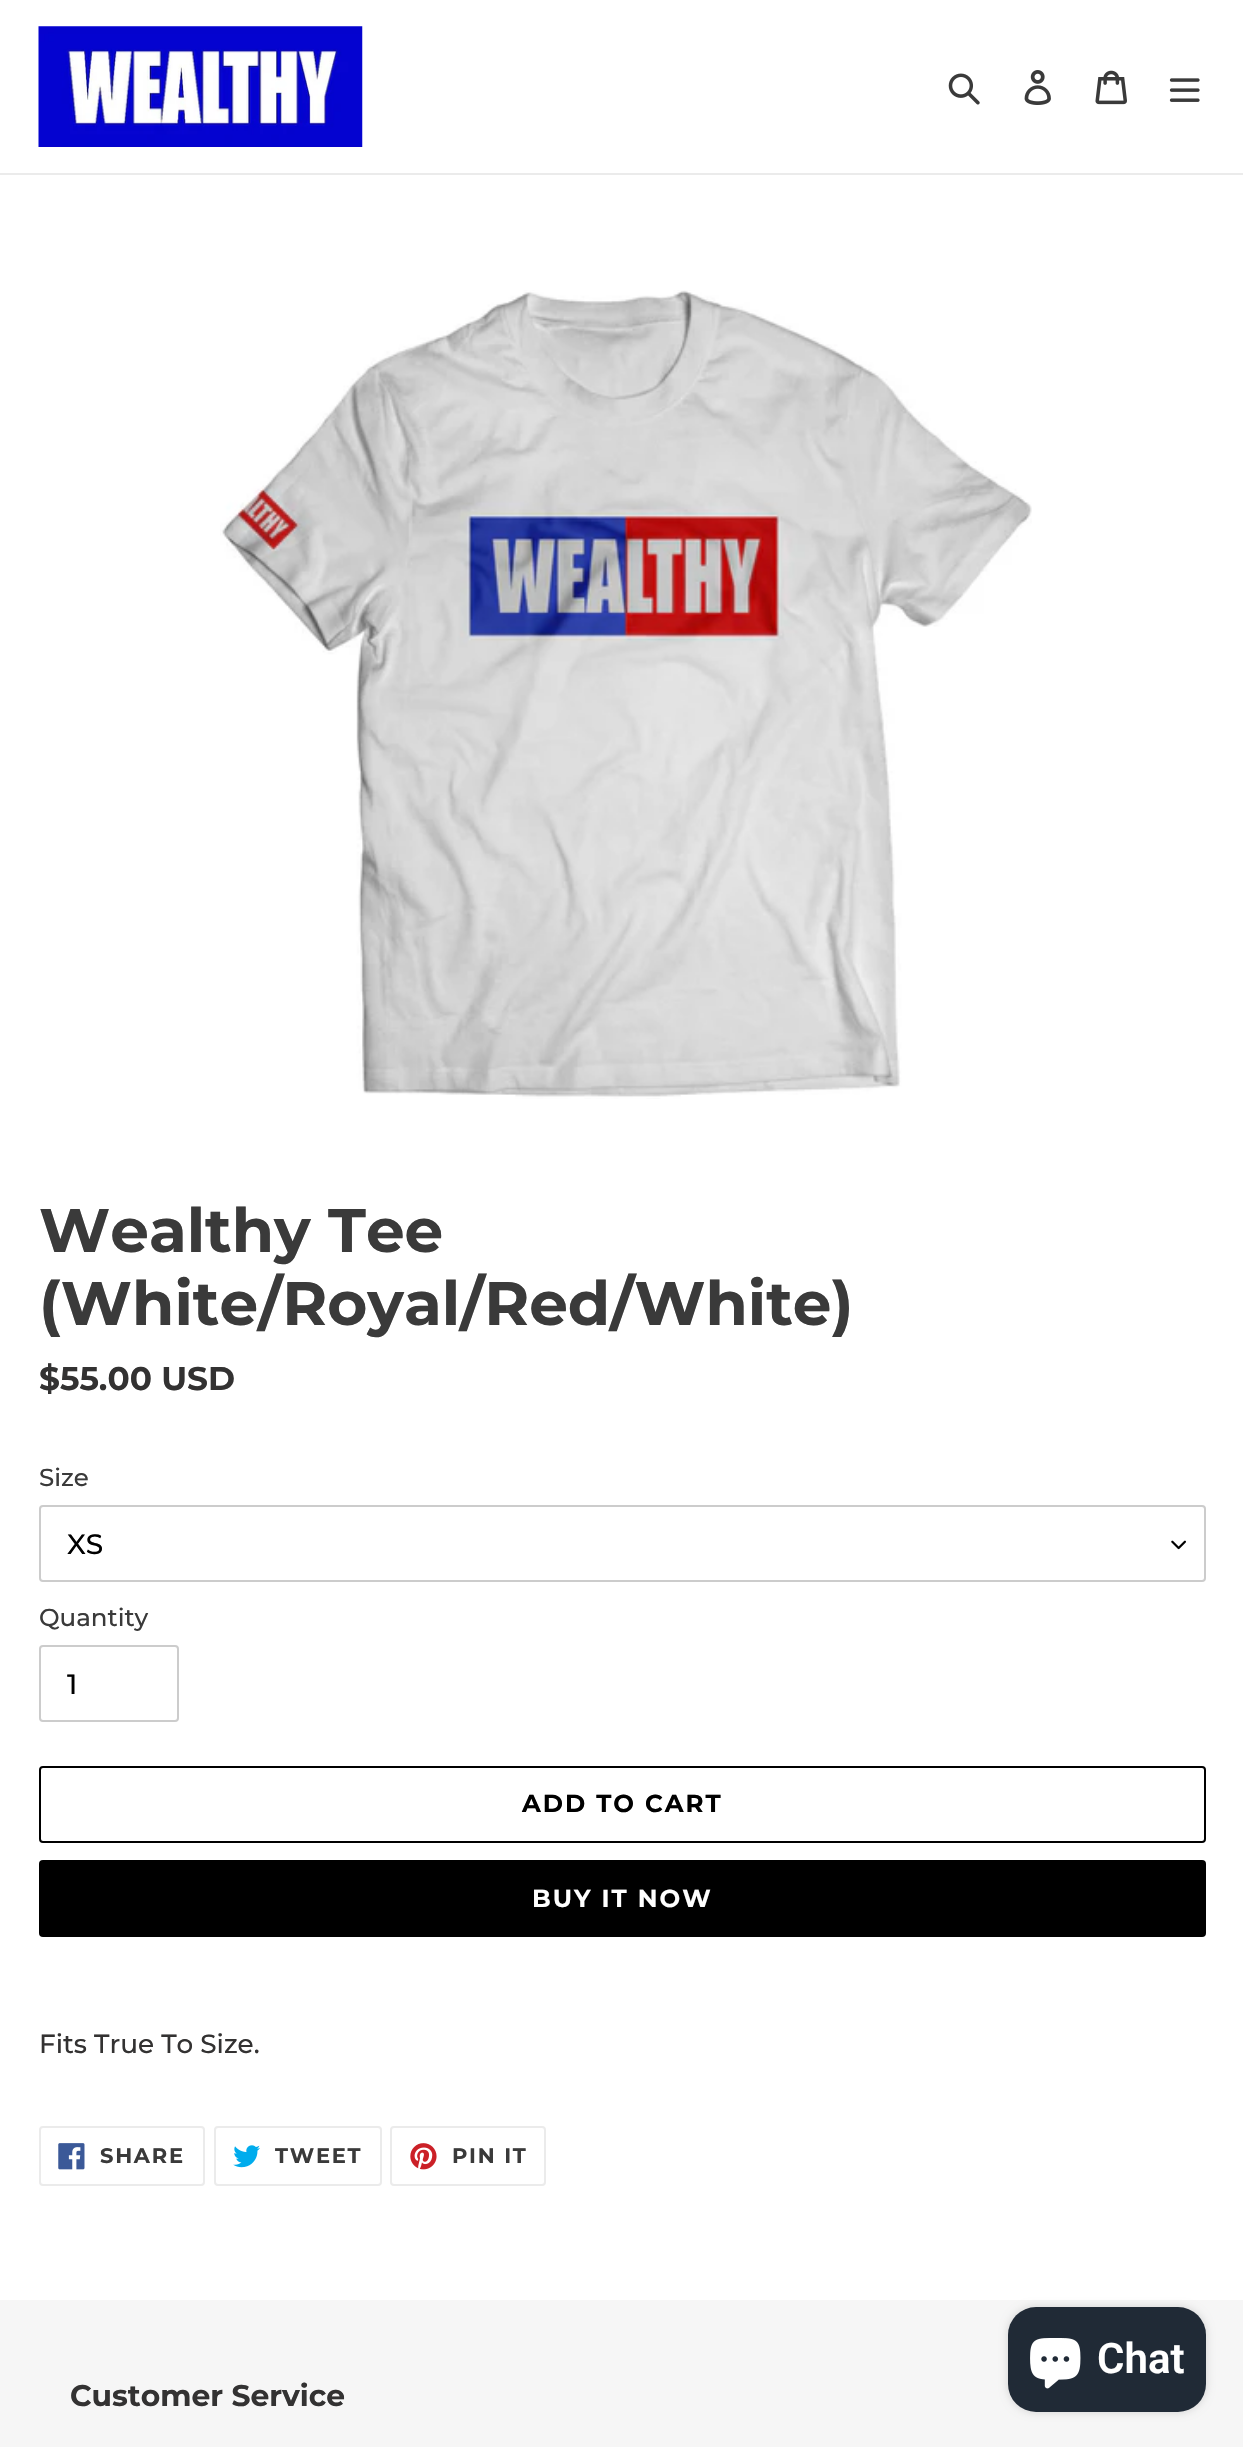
#include "include/core/SkBlurTypes.h"
#include "include/core/SkCanvas.h"
#include "include/core/SkData.h"
#include "include/core/SkFont.h"
#include "include/core/SkFontMgr.h"
#include "include/core/SkImage.h"
#include "include/core/SkMaskFilter.h"
#include "include/core/SkPaint.h"
#include "include/core/SkPathBuilder.h"
#include "include/core/SkTextBlob.h"
#include "include/effects/SkDashPathEffect.h"
#include "include/effects/SkGradientShader.h"
#include "include/utils/SkParsePath.h"

extern sk_sp<SkFontMgr> fontMgr;

void draw(SkCanvas* canvas) {
    SkPaint p;
    p.setAntiAlias(true);
    auto font = [&](const char* family, int weight, float size, bool italic = false) {
        SkFontStyle style(weight, SkFontStyle::kNormal_Width,
            italic ? SkFontStyle::kItalic_Slant : SkFontStyle::kUpright_Slant);
        SkFont result(fontMgr->matchFamilyStyle(family, style), size);
        result.setSubpixel(true);
        return result;
    };
    auto drawTracked = [&](const char* s, float x, float y, const SkFont& font, const SkPaint& ink, float letter, float word) {
        std::vector<SkGlyphID> glyphs(font.countText(s, strlen(s), SkTextEncoding::kUTF8));
        std::vector<float> xs(glyphs.size());
        font.textToGlyphs(s, strlen(s), SkTextEncoding::kUTF8, glyphs);
        font.getXPos(glyphs, xs, x);
        float extra = 0;
        for (size_t i = 0; i < glyphs.size(); i++) {
            xs[i] += extra;
            extra += letter + word * (glyphs[i] == font.unicharToGlyph(' '));
        }
        canvas->drawTextBlob(SkTextBlob::MakeFromPosHGlyphs(glyphs, xs, y, font), 0, 0, ink);
    };
    auto drawPhoto = [&](const char* path, float l, float t, float r, float b) {
        auto image = SkImages::DeferredFromEncodedData(SkData::MakeFromFileName(path));
        canvas->drawImageRect(image, SkRect::MakeLTRB(l, t, r, b), SkSamplingOptions());
    };
    canvas->clear(0xFFFFFFFF);
    p.setColor(0xFFEBEBEB);
    canvas->drawRect(SkRect::MakeLTRB(0, 173, 1243, 175), p);
    drawPhoto("media/1.png", 38, 26, 363, 147);
    drawPhoto("media/2.png", 948, 73, 980, 105);
    drawPhoto("media/3.png", 1024, 70, 1051, 105);
    drawPhoto("media/4.png", 1095, 70, 1127, 105);
    drawPhoto("media/5.png", 1169, 78, 1200, 102);
    drawPhoto("media/6.png", 220, 290, 1032, 1099);
    auto font1 = font("Montserrat", 700, 61.25f);
    p.setColor(0xFF3A3A3A);
    canvas->drawString("Wealthy Tee", 39, 1252, font1, p);
    canvas->drawString("(White/Royal/Red/White)", 39, 1325, font1, p);
    auto font2 = font("Montserrat", 700, 32.75f);
    p.setColor(0xFF333232);
    canvas->drawString("$55.00 USD", 39, 1390, font2, p);
    auto font3 = font("Montserrat", 500, 24.5f);
    p.setColor(0xFF3A3A3A);
    canvas->drawString("Size", 39, 1486, font3, p);
    drawPhoto("media/7.png", 1171, 1540, 1186, 1550);
    p.setStyle(SkPaint::kStroke_Style);
    p.setStrokeWidth(2);
    p.setColor(0xFFCCCCCC);
    canvas->drawRoundRect(SkRect::MakeLTRB(40, 1506, 1205, 1581), 3, 3, p);
    auto font4 = font("Montserrat", 500, 28);
    p.setStyle(SkPaint::kFill_Style);
    p.setColor(0xFF000000);
    canvas->drawString("XS", 67, 1554, font4, p);
    p.setColor(0xFF3A3A3A);
    canvas->drawString("Quantity", 39, 1626, font3, p);
    p.setStyle(SkPaint::kStroke_Style);
    p.setColor(0xFFCCCCCC);
    canvas->drawRoundRect(SkRect::MakeLTRB(40, 1646, 178, 1721), 3, 3, p);
    canvas->save();
    canvas->clipRect(SkRect::MakeLTRB(67, 1668, 124, 1701));
    p.setStyle(SkPaint::kFill_Style);
    p.setColor(0xFF000000);
    canvas->drawString("1", 67, 1694, font4, p);
    canvas->restore();
    p.setStyle(SkPaint::kStroke_Style);
    canvas->drawRoundRect(SkRect::MakeLTRB(40, 1767, 1205, 1842), 3, 3, p);
    auto font5 = font("Montserrat", 700, 24.5f);
    p.setStyle(SkPaint::kFill_Style);
    drawTracked("ADD TO CART", 522, 1812, font5, p, 2, 0);
    canvas->drawRoundRect(SkRect::MakeLTRB(39, 1860, 1206, 1937), 4, 4, p);
    p.setColor(0xFFFFFFFF);
    drawTracked("BUY IT NOW", 532, 1907, font5, p, 2, 0);
    auto font6 = font("Montserrat", 500, 26.25f);
    p.setColor(0xFF333232);
    canvas->drawString("Fits True To Size.", 39, 2053, font6, p);
    p.setStyle(SkPaint::kStroke_Style);
    p.setColor(0xFFEBEBEB);
    canvas->drawRoundRect(SkRect::MakeLTRB(40, 2127, 204, 2185), 3, 3, p);
    drawPhoto("media/8.png", 58, 2143, 85, 2170);
    auto font7 = font("Montserrat", 700, 21);
    p.setStyle(SkPaint::kFill_Style);
    p.setColor(0xFF3A3A3A);
    drawTracked("SHARE", 100, 2163, font7, p, 1.75f, 0);
    p.setStyle(SkPaint::kStroke_Style);
    p.setColor(0xFFEBEBEB);
    canvas->drawRoundRect(SkRect::MakeLTRB(215, 2127, 381, 2185), 3, 3, p);
    drawPhoto("media/9.png", 233, 2145, 260, 2168);
    p.setStyle(SkPaint::kFill_Style);
    p.setColor(0xFF3A3A3A);
    drawTracked("TWEET", 275, 2163, font7, p, 1.75f, 0);
    p.setStyle(SkPaint::kStroke_Style);
    p.setColor(0xFFEBEBEB);
    canvas->drawRoundRect(SkRect::MakeLTRB(391, 2127, 545, 2185), 3, 3, p);
    drawPhoto("media/10.png", 410, 2143, 437, 2170);
    p.setStyle(SkPaint::kFill_Style);
    p.setColor(0xFF3A3A3A);
    drawTracked("PIN IT", 452, 2163, font7, p, 1.75f, 0);
    p.setColor(0xFFF6F6F6);
    canvas->drawRect(SkRect::MakeLTRB(0, 2300, 1243, 2447), p);
    auto font8 = font("Montserrat", 700, 29.75f);
    p.setColor(0xFF333232);
    canvas->drawString("Customer Service", 70, 2406, font8, p);
    p.setColor(0x26000000);
    p.setMaskFilter(SkMaskFilter::MakeBlur(kNormal_SkBlurStyle, 4.5f));
    canvas->drawRoundRect(SkRect::MakeLTRB(1008, 2307, 1206, 2412), 28, 28, p);
    p.setMaskFilter(nullptr);
    p.setColor(0xFF202A36);
    canvas->drawRoundRect(SkRect::MakeLTRB(1008, 2307, 1206, 2412), 28, 28, p);
    drawPhoto("media/11.png", 1030, 2338, 1081, 2389);
    auto font9 = font("Roboto", 600, 42);
    p.setColor(0xFFFFFFFF);
    canvas->drawString("Chat", 1097, 2373, font9, p);
}
